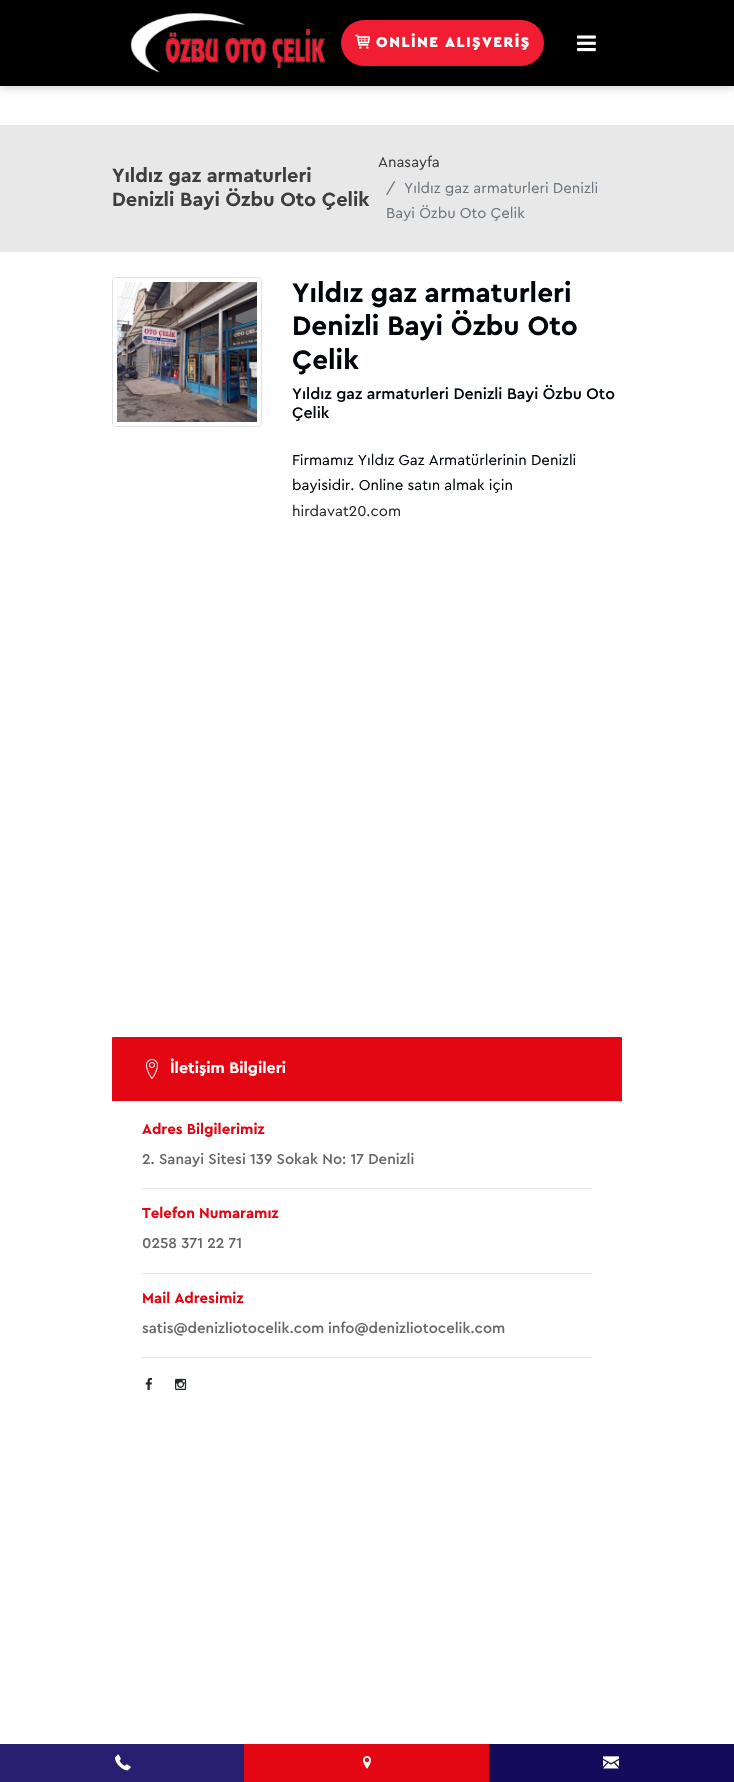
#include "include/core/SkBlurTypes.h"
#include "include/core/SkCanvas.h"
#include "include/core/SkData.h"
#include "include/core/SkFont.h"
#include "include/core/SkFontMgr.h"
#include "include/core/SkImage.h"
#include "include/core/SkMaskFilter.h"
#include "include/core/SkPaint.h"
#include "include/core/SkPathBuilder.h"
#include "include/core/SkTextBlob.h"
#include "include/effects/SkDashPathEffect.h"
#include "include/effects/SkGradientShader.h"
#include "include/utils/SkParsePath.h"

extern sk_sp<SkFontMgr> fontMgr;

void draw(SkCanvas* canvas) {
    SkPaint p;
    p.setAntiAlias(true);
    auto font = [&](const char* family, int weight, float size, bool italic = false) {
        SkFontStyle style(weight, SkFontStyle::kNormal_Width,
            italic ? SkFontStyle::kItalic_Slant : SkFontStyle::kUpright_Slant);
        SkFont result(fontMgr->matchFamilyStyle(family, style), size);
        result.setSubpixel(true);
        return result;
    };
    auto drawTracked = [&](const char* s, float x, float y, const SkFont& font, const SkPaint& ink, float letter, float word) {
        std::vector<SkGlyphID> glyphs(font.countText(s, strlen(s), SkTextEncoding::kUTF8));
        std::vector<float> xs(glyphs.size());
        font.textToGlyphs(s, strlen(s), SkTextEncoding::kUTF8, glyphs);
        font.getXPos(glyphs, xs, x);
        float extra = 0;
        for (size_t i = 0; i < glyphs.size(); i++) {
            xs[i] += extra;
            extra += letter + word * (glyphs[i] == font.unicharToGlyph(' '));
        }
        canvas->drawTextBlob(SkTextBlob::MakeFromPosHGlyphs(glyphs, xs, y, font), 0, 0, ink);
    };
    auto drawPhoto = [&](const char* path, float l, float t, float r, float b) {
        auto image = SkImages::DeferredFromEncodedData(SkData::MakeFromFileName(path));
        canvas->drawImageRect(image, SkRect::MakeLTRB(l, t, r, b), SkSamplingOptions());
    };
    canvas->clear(0xFFFFFFFF);
    p.setColor(0x42000000);
    p.setMaskFilter(SkMaskFilter::MakeBlur(kNormal_SkBlurStyle, 5));
    canvas->drawRect(SkRect::MakeLTRB(0, 0, 734, 86), p);
    p.setMaskFilter(nullptr);
    p.setColor(0xFF000000);
    canvas->drawRect(SkRect::MakeLTRB(0, 0, 734, 86), p);
    drawPhoto("media/1.png", 130, 13, 325, 73);
    p.setColor(0xFFF01D33);
    canvas->drawRoundRect(SkRect::MakeLTRB(341, 20, 544, 66), 23, 23, p);
    drawPhoto("media/2.png", 355, 34, 370, 49);
    auto font1 = font("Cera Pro", 900, 15);
    p.setColor(0xFFFFFFFF);
    drawTracked("ONLİNE ALIŞVERİŞ", 376, 47, font1, p, 1.5f, 0);
    drawPhoto("media/3.png", 577, 35, 596, 52);
    p.setColor(0xFFE8E8E8);
    canvas->drawRect(SkRect::MakeLTRB(0, 125, 734, 252), p);
    auto font2 = font("Cera Pro", 700, 20);
    p.setColor(0xFF3E3E3E);
    canvas->drawString("Yıldız gaz armaturleri", 112, 182, font2, p);
    canvas->drawString("Denizli Bayi Özbu Oto Çelik", 112, 206, font2, p);
    auto font3 = font("Cera Pro", 400, 15);
    canvas->drawString("Anasayfa", 378, 167, font3, p);
    p.setColor(0xFF6C757D);
    {
        const struct { const char* s; float x, y; } items[] = {
            {"/", 386, 193},
            {"Yıldız gaz armaturleri Denizli", 404, 193},
            {"Bayi Özbu Oto Çelik", 386, 218},
        };
        for (auto [s, x, y] : items) {
            canvas->drawString(s, x, y, font3, p);
        }
    }
    p.setStyle(SkPaint::kStroke_Style);
    p.setStrokeWidth(1);
    p.setColor(0xFFDEE2E6);
    canvas->drawRoundRect(SkRect::MakeLTRB(112.5f, 277.5f, 261.5f, 426.5f), 3.5f, 3.5f, p);
    drawPhoto("media/4.png", 117, 282, 257, 422);
    auto font4 = font("Cera Pro", 700, 28);
    p.setStyle(SkPaint::kFill_Style);
    p.setColor(0xFF00050B);
    {
        const struct { const char* s; float x, y; } items[] = {
            {"Yıldız gaz armaturleri", 292, 302},
            {"Denizli Bayi Özbu Oto", 292, 335},
            {"Çelik", 292, 369},
        };
        for (auto [s, x, y] : items) {
            canvas->drawString(s, x, y, font4, p);
        }
    }
    auto font5 = font("Cera Pro", 500, 16);
    canvas->drawString("Yıldız gaz armaturleri Denizli Bayi Özbu Oto", 292, 399, font5, p);
    canvas->drawString("Çelik", 292, 418, font5, p);
    canvas->drawString("Firmamız Yıldız Gaz Armatürlerinin Denizli", 292, 465, font3, p);
    canvas->drawString("bayisidir. Online satın almak için", 292, 490, font3, p);
    p.setColor(0xFF23282D);
    canvas->drawString("hirdavat20.com", 292, 516, font3, p);
    p.setColor(0xFFE30613);
    canvas->drawPath(SkPathBuilder().moveTo(113, 1037).lineTo(621, 1037).cubicTo(621.5f, 1037, 622, 1037.5f, 622, 1038).lineTo(622, 1101).lineTo(112, 1101).lineTo(112, 1038).cubicTo(112, 1037.5f, 112.5f, 1037, 113, 1037).close().detach(), p);
    drawPhoto("media/5.png", 146, 1059, 158, 1079);
    auto font6 = font("Cera Pro", 700, 16);
    p.setColor(0xFFFFFFFF);
    canvas->drawString("İletişim Bilgileri", 170, 1073, font6, p);
    auto font7 = font("Cera Pro", 700, 15);
    p.setColor(0xFFE00713);
    canvas->drawString("Adres Bilgilerimiz", 142, 1134, font7, p);
    auto font8 = font("Cera Pro", 500, 15);
    p.setColor(0xFF666666);
    canvas->drawString("2. Sanayi Sitesi 139 Sokak No: 17 Denizli", 142, 1164, font8, p);
    p.setColor(0xFFE6E6E6);
    canvas->drawRect(SkRect::MakeLTRB(142, 1188, 592, 1189), p);
    p.setColor(0xFFE00713);
    canvas->drawString("Telefon Numaramız", 142, 1218, font7, p);
    p.setColor(0xFF666666);
    canvas->drawString("0258 371 22 71", 142, 1248, font8, p);
    p.setColor(0xFFE6E6E6);
    canvas->drawRect(SkRect::MakeLTRB(142, 1273, 592, 1274), p);
    p.setColor(0xFFE00713);
    canvas->drawString("Mail Adresimiz", 142, 1303, font7, p);
    p.setColor(0xFF666666);
    canvas->drawString("satis@denizliotocelik.com", 142, 1333, font8, p);
    canvas->drawString("info@denizliotocelik.com", 328, 1333, font8, p);
    p.setColor(0xFFE6E6E6);
    canvas->drawRect(SkRect::MakeLTRB(142, 1357, 592, 1358), p);
    drawPhoto("media/6.png", 145, 1377, 152, 1390);
    drawPhoto("media/7.png", 175, 1378, 187, 1390);
    p.setColor(0xFF291F71);
    canvas->drawRect(SkRect::MakeLTRB(0, 1744, 244, 1782), p);
    drawPhoto("media/8.png", 115, 1754, 131, 1771);
    p.setColor(0xFFE30613);
    canvas->drawRect(SkRect::MakeLTRB(244, 1744, 489, 1782), p);
    drawPhoto("media/9.png", 363, 1756, 371, 1769);
    p.setColor(0xFF150B5A);
    canvas->drawRect(SkRect::MakeLTRB(489, 1744, 734, 1782), p);
    drawPhoto("media/10.png", 603, 1756, 619, 1769);
}
